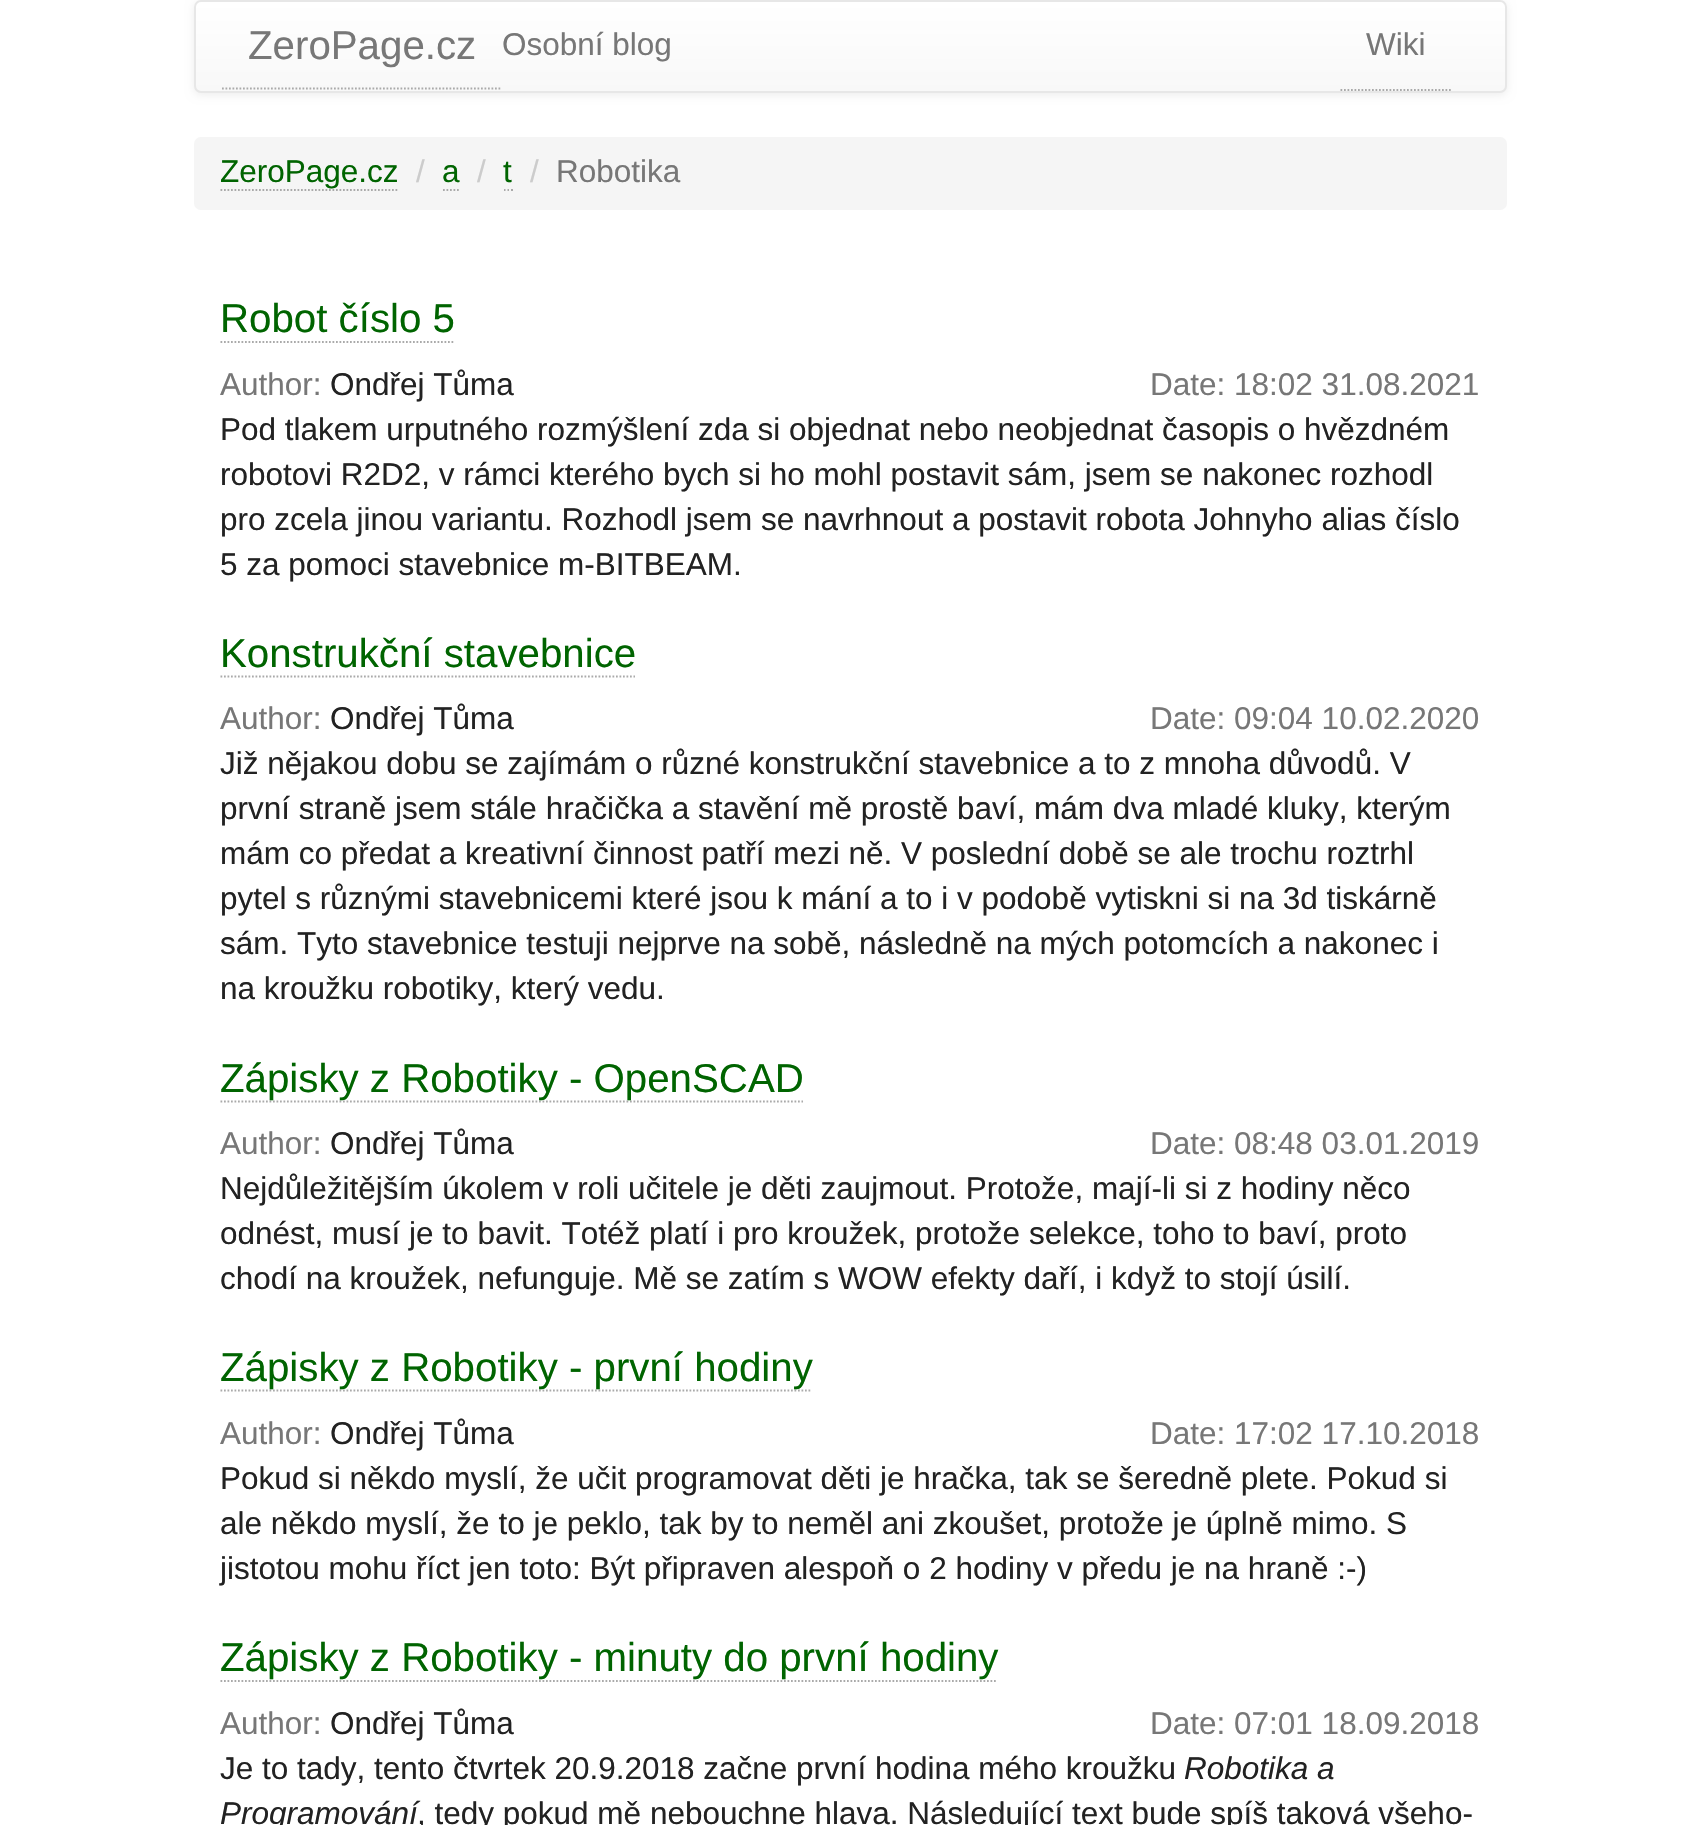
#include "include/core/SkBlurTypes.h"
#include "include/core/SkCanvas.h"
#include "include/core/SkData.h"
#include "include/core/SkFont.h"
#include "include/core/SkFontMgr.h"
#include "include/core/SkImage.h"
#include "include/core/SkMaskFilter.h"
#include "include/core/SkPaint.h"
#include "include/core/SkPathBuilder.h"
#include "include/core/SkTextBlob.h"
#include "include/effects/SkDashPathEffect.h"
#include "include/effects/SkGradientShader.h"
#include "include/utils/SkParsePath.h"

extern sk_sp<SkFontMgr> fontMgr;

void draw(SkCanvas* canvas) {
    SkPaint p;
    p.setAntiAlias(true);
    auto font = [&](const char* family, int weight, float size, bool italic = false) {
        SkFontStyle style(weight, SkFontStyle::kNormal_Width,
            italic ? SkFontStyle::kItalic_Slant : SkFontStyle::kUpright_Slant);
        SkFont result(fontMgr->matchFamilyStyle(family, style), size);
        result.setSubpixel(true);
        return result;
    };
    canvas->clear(0xFFFFFFFF);
    p.setColor(0x12000000);
    p.setMaskFilter(SkMaskFilter::MakeBlur(kNormal_SkBlurStyle, 4.5f));
    canvas->drawRoundRect(SkRect::MakeLTRB(194, 2, 1507, 95), 7, 7, p);
    p.setMaskFilter(nullptr);
    canvas->save();
    canvas->clipPath(SkPathBuilder().moveTo(201, 0).lineTo(1500, 0).cubicTo(1504, 0, 1507, 3, 1507, 7).lineTo(1507, 86).cubicTo(1507, 90, 1504, 93, 1500, 93).lineTo(201, 93).cubicTo(197, 93, 194, 90, 194, 86).lineTo(194, 7).cubicTo(194, 3, 197, 0, 201, 0).close().detach(), true);
    {
        const SkColor colors[] = {0xFFFFFFFF, 0xFFF8F8F8};
        const float stops[] = {0, 1};
        const SkPoint ends[] = {{851, 1.7f}, {851, 91}};
        p.setShader(SkGradientShader::MakeLinear(ends, colors, stops, 2, SkTileMode::kClamp));
        p.setAlpha(255);
    }
    canvas->drawRect(SkRect::MakeLTRB(194, 2, 1507, 91), p);
    canvas->restore();
    p.setStyle(SkPaint::kStroke_Style);
    p.setStrokeWidth(2);
    p.setShader(nullptr);
    p.setColor(0xFFE7E7E7);
    canvas->drawRoundRect(SkRect::MakeLTRB(195, 1, 1506, 92), 6, 6, p);
    p.setStrokeWidth(1.8f);
    p.setColor(0xFFAAAAAA);
    p.setPathEffect(SkDashPathEffect::Make({{1.75f, 1.75f}}, 0));
    canvas->drawPath(SkPathBuilder().moveTo(222, 88.5f).lineTo(502, 88.5f).detach(), p);
    p.setPathEffect(nullptr);
    auto font1 = font("Liberation Sans", 400, 40.25f);
    p.setStyle(SkPaint::kFill_Style);
    p.setColor(0xFF777777);
    canvas->drawString("ZeroPage.cz", 248, 59, font1, p);
    auto font2 = font("Liberation Sans", 400, 31.5f);
    canvas->drawString("Osobní blog", 502, 55, font2, p);
    p.setStyle(SkPaint::kStroke_Style);
    p.setColor(0xFFAAAAAA);
    p.setPathEffect(SkDashPathEffect::Make({{1.75f, 1.75f}}, 0));
    canvas->drawPath(SkPathBuilder().moveTo(1340.5f, 90).lineTo(1452.5f, 90).detach(), p);
    p.setPathEffect(nullptr);
    p.setStyle(SkPaint::kFill_Style);
    p.setColor(0xFF777777);
    canvas->drawString("Wiki", 1366, 55, font2, p);
    p.setColor(0xFFF5F5F5);
    canvas->drawRoundRect(SkRect::MakeLTRB(194, 137, 1507, 210), 7, 7, p);
    p.setColor(0xFF006400);
    canvas->drawString("ZeroPage.cz", 220, 182, font2, p);
    p.setStyle(SkPaint::kStroke_Style);
    p.setColor(0xFFAAAAAA);
    p.setPathEffect(SkDashPathEffect::Make({{1.75f, 1.75f}}, 0));
    canvas->drawPath(SkPathBuilder().moveTo(220.5f, 190).lineTo(399, 190).detach(), p);
    p.setPathEffect(nullptr);
    p.setStyle(SkPaint::kFill_Style);
    p.setColor(0xFFCCCCCC);
    canvas->drawString("/", 416, 182, font2, p);
    p.setColor(0xFF006400);
    canvas->drawString("a", 442, 182, font2, p);
    p.setStyle(SkPaint::kStroke_Style);
    p.setColor(0xFFAAAAAA);
    p.setPathEffect(SkDashPathEffect::Make({{1.75f, 1.75f}}, 0));
    canvas->drawPath(SkPathBuilder().moveTo(443, 190).lineTo(460, 190).detach(), p);
    p.setPathEffect(nullptr);
    p.setStyle(SkPaint::kFill_Style);
    p.setColor(0xFFCCCCCC);
    canvas->drawString("/", 477, 182, font2, p);
    p.setColor(0xFF006400);
    canvas->drawString("t", 503, 182, font2, p);
    p.setStyle(SkPaint::kStroke_Style);
    p.setColor(0xFFAAAAAA);
    canvas->drawPath(SkPathBuilder().moveTo(504, 190).lineTo(505.5f, 190).moveTo(507.5f, 190).lineTo(509, 190).moveTo(511, 190).lineTo(513, 190).detach(), p);
    p.setStyle(SkPaint::kFill_Style);
    p.setColor(0xFFCCCCCC);
    canvas->drawString("/", 530, 182, font2, p);
    p.setColor(0xFF777777);
    canvas->drawString("Robotika", 556, 182, font2, p);
    p.setColor(0xFF006400);
    canvas->drawString("Robot číslo 5", 220, 332, font1, p);
    p.setStyle(SkPaint::kStroke_Style);
    p.setColor(0xFFAAAAAA);
    p.setPathEffect(SkDashPathEffect::Make({{1.75f, 1.75f}}, 0));
    canvas->drawPath(SkPathBuilder().moveTo(220.5f, 342).lineTo(455, 342).detach(), p);
    p.setPathEffect(nullptr);
    p.setStyle(SkPaint::kFill_Style);
    p.setColor(0xFF777777);
    canvas->drawString("Author:", 220, 395, font2, p);
    p.setColor(0xFF222222);
    canvas->drawString("Ondřej Tůma", 330, 395, font2, p);
    p.setColor(0xFF777777);
    canvas->drawString("Date: 18:02 31.08.2021", 1150, 395, font2, p);
    p.setColor(0xFF222222);
    {
        const struct { const char* s; float x, y; } items[] = {
            {"Pod tlakem urputného rozmýšlení zda si objednat nebo neobjednat časopis o hvězdném", 220, 440},
            {"robotovi R2D2, v rámci kterého bych si ho mohl postavit sám, jsem se nakonec rozhodl", 220, 485},
            {"pro zcela jinou variantu. Rozhodl jsem se navrhnout a postavit robota Johnyho alias číslo", 220, 530},
            {"5 za pomoci stavebnice m-BITBEAM.", 220, 575},
        };
        for (auto [s, x, y] : items) {
            canvas->drawString(s, x, y, font2, p);
        }
    }
    p.setColor(0xFF006400);
    canvas->drawString("Konstrukční stavebnice", 220, 667, font1, p);
    p.setStyle(SkPaint::kStroke_Style);
    p.setColor(0xFFAAAAAA);
    p.setPathEffect(SkDashPathEffect::Make({{1.75f, 1.75f}}, 0));
    canvas->drawPath(SkPathBuilder().moveTo(220.5f, 676.5f).lineTo(635, 676.5f).detach(), p);
    p.setPathEffect(nullptr);
    p.setStyle(SkPaint::kFill_Style);
    p.setColor(0xFF777777);
    canvas->drawString("Author:", 220, 729, font2, p);
    p.setColor(0xFF222222);
    canvas->drawString("Ondřej Tůma", 330, 729, font2, p);
    p.setColor(0xFF777777);
    canvas->drawString("Date: 09:04 10.02.2020", 1150, 729, font2, p);
    p.setColor(0xFF222222);
    {
        const struct { const char* s; float x, y; } items[] = {
            {"Již nějakou dobu se zajímám o různé konstrukční stavebnice a to z mnoha důvodů. V", 220, 774},
            {"první straně jsem stále hračička a stavění mě prostě baví, mám dva mladé kluky, kterým", 220, 819},
            {"mám co předat a kreativní činnost patří mezi ně. V poslední době se ale trochu roztrhl", 220, 864},
            {"pytel s různými stavebnicemi které jsou k mání a to i v podobě vytiskni si na 3d tiskárně", 220, 909},
            {"sám. Tyto stavebnice testuji nejprve na sobě, následně na mých potomcích a nakonec i", 220, 954},
            {"na kroužku robotiky, který vedu.", 220, 999},
        };
        for (auto [s, x, y] : items) {
            canvas->drawString(s, x, y, font2, p);
        }
    }
    p.setStyle(SkPaint::kStroke_Style);
    p.setColor(0xFFAAAAAA);
    p.setPathEffect(SkDashPathEffect::Make({{1.75f, 1.75f}}, 0));
    canvas->drawPath(SkPathBuilder().moveTo(220.5f, 1101.5f).lineTo(803, 1101.5f).detach(), p);
    p.setPathEffect(nullptr);
    p.setStyle(SkPaint::kFill_Style);
    p.setColor(0xFF006400);
    canvas->drawString("Zápisky z Robotiky - OpenSCAD", 220, 1092, font1, p);
    p.setColor(0xFF777777);
    canvas->drawString("Author:", 220, 1154, font2, p);
    p.setColor(0xFF222222);
    canvas->drawString("Ondřej Tůma", 330, 1154, font2, p);
    p.setColor(0xFF777777);
    canvas->drawString("Date: 08:48 03.01.2019", 1150, 1154, font2, p);
    p.setColor(0xFF222222);
    {
        const struct { const char* s; float x, y; } items[] = {
            {"Nejdůležitějším úkolem v roli učitele je děti zaujmout. Protože, mají-li si z hodiny něco", 220, 1199},
            {"odnést, musí je to bavit. Totéž platí i pro kroužek, protože selekce, toho to baví, proto", 220, 1244},
            {"chodí na kroužek, nefunguje. Mě se zatím s WOW efekty daří, i když to stojí úsilí.", 220, 1289},
        };
        for (auto [s, x, y] : items) {
            canvas->drawString(s, x, y, font2, p);
        }
    }
    p.setStyle(SkPaint::kStroke_Style);
    p.setColor(0xFFAAAAAA);
    p.setPathEffect(SkDashPathEffect::Make({{1.75f, 1.75f}}, 0));
    canvas->drawPath(SkPathBuilder().moveTo(220.5f, 1390.5f).lineTo(812, 1390.5f).detach(), p);
    p.setPathEffect(nullptr);
    p.setStyle(SkPaint::kFill_Style);
    p.setColor(0xFF006400);
    canvas->drawString("Zápisky z Robotiky - první hodiny", 220, 1381, font1, p);
    p.setColor(0xFF777777);
    canvas->drawString("Author:", 220, 1444, font2, p);
    p.setColor(0xFF222222);
    canvas->drawString("Ondřej Tůma", 330, 1444, font2, p);
    p.setColor(0xFF777777);
    canvas->drawString("Date: 17:02 17.10.2018", 1150, 1444, font2, p);
    p.setColor(0xFF222222);
    {
        const struct { const char* s; float x, y; } items[] = {
            {"Pokud si někdo myslí, že učit programovat děti je hračka, tak se šeredně plete. Pokud si", 220, 1489},
            {"ale někdo myslí, že to je peklo, tak by to neměl ani zkoušet, protože je úplně mimo. S", 220, 1534},
            {"jistotou mohu říct jen toto: Být připraven alespoň o 2 hodiny v předu je na hraně :-)", 220, 1579},
        };
        for (auto [s, x, y] : items) {
            canvas->drawString(s, x, y, font2, p);
        }
    }
    p.setColor(0xFF006400);
    canvas->drawString("Zápisky z Robotiky - minuty do první hodiny", 220, 1671, font1, p);
    p.setStyle(SkPaint::kStroke_Style);
    p.setColor(0xFFAAAAAA);
    p.setPathEffect(SkDashPathEffect::Make({{1.75f, 1.75f}}, 0));
    canvas->drawPath(SkPathBuilder().moveTo(220.5f, 1681).lineTo(997.5f, 1681).detach(), p);
    p.setPathEffect(nullptr);
    p.setStyle(SkPaint::kFill_Style);
    p.setColor(0xFF777777);
    canvas->drawString("Author:", 220, 1734, font2, p);
    p.setColor(0xFF222222);
    canvas->drawString("Ondřej Tůma", 330, 1734, font2, p);
    p.setColor(0xFF777777);
    canvas->drawString("Date: 07:01 18.09.2018", 1150, 1734, font2, p);
    p.setColor(0xFF222222);
    canvas->drawString("Je to tady, tento čtvrtek 20.9.2018 začne první hodina mého kroužku", 220, 1779, font2, p);
    auto font3 = font("Liberation Sans", 400, 31.5f, true);
    canvas->drawString("Robotika a", 1184, 1779, font3, p);
    canvas->drawString("Programování", 220, 1824, font3, p);
    canvas->drawString(", tedy pokud mě nebouchne hlava. Následující text bude spíš taková všeho-", 417, 1824, font2, p);
}
